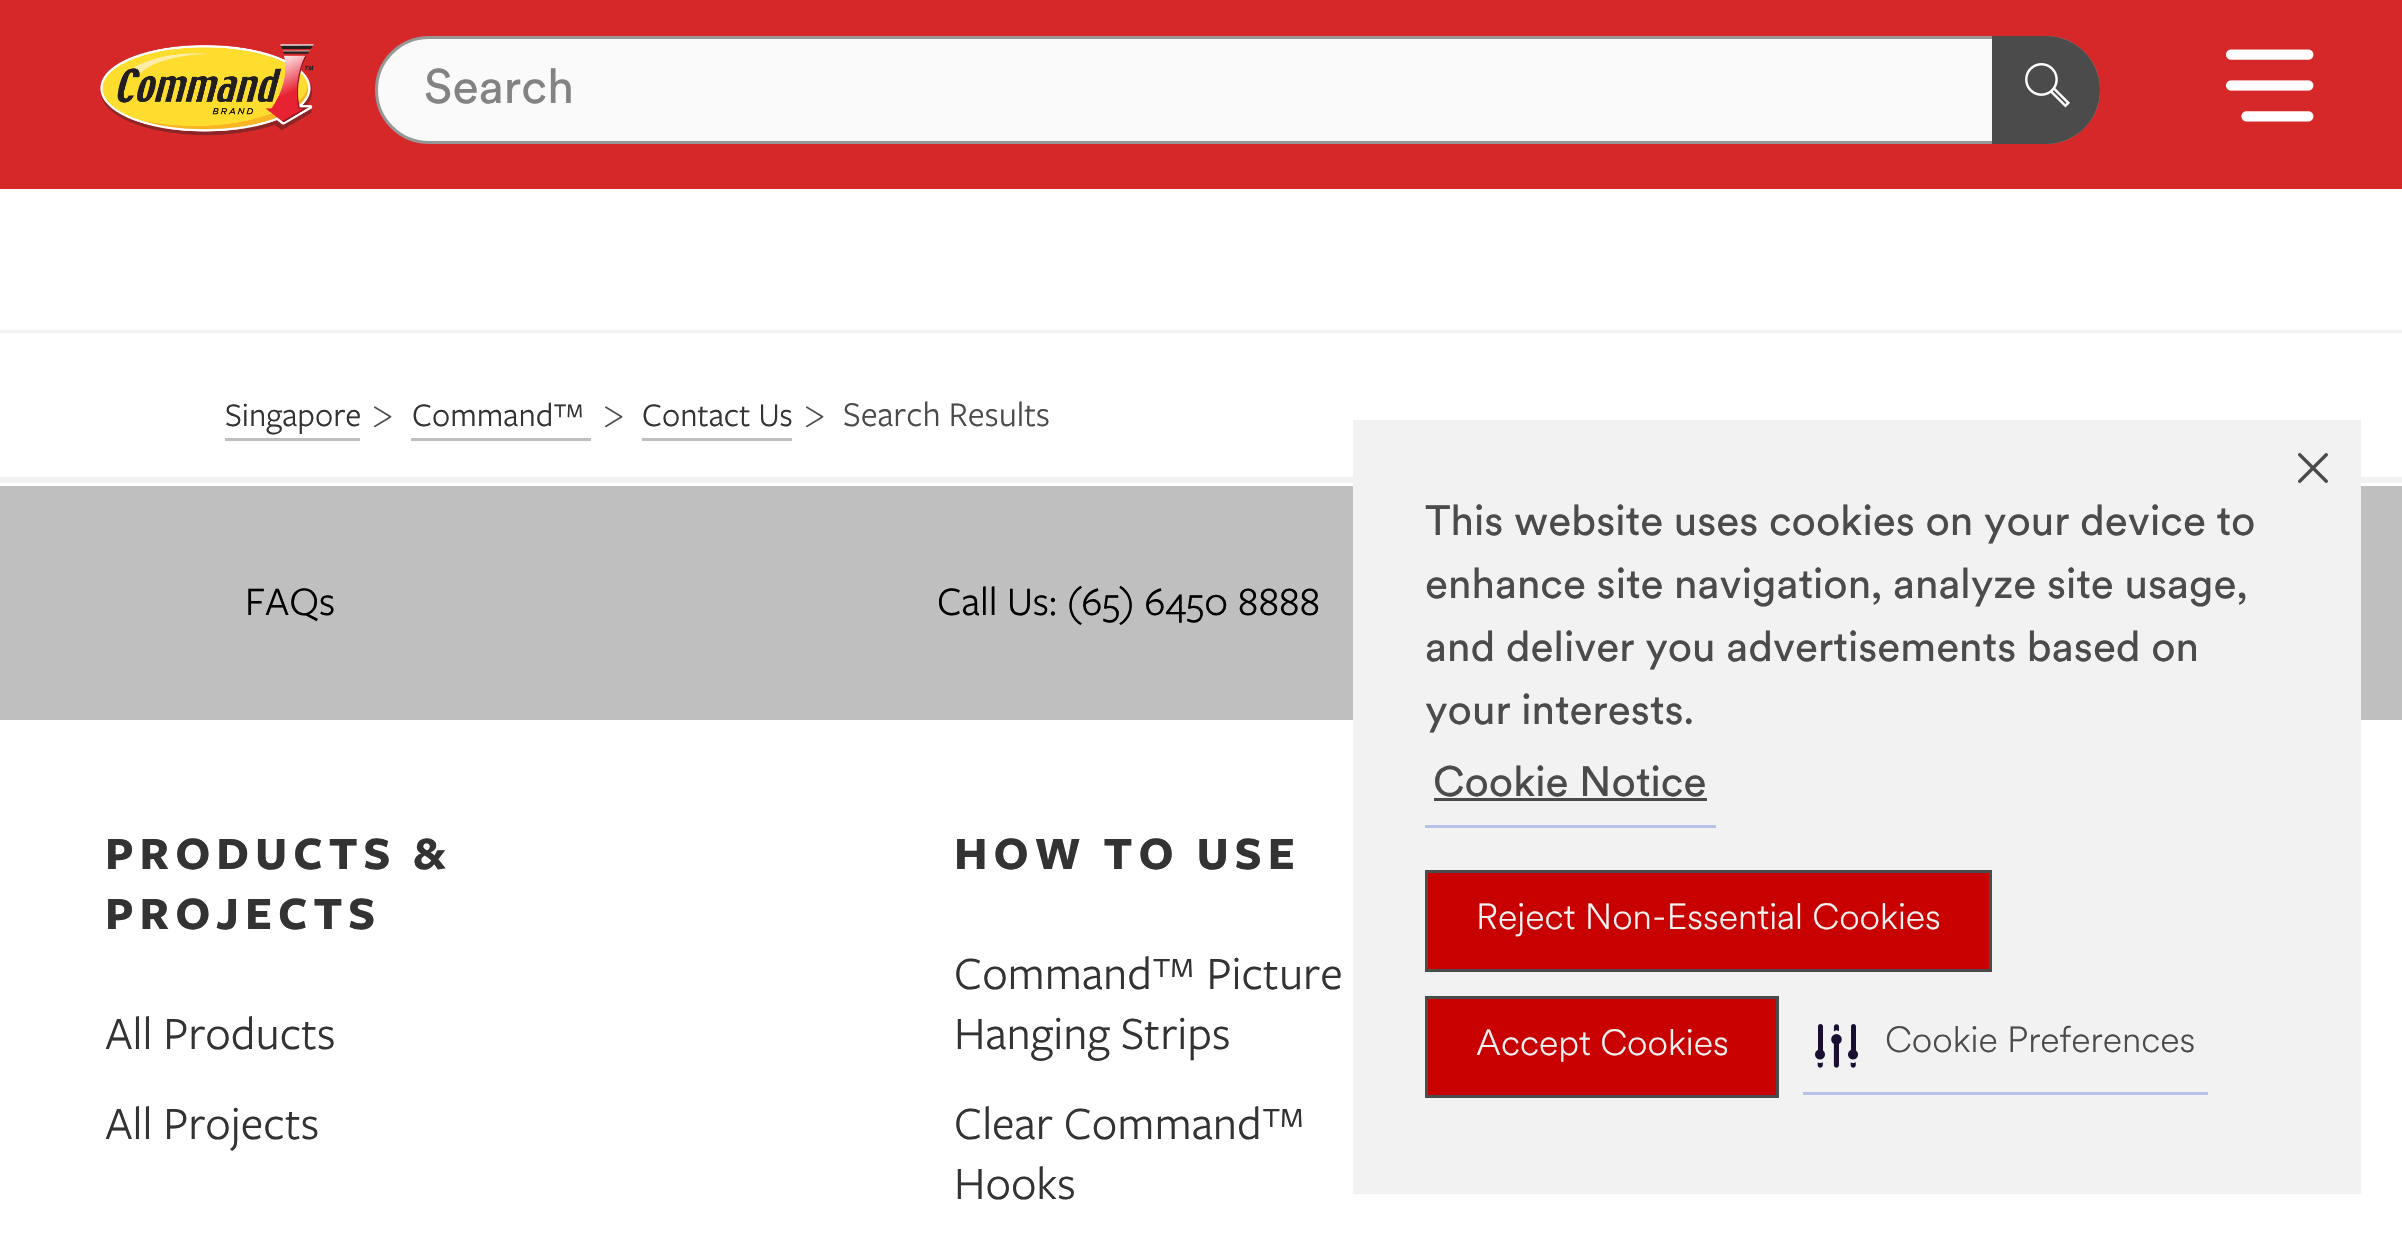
#include "include/core/SkBlurTypes.h"
#include "include/core/SkCanvas.h"
#include "include/core/SkData.h"
#include "include/core/SkFont.h"
#include "include/core/SkFontMgr.h"
#include "include/core/SkImage.h"
#include "include/core/SkMaskFilter.h"
#include "include/core/SkPaint.h"
#include "include/core/SkPathBuilder.h"
#include "include/core/SkTextBlob.h"
#include "include/effects/SkDashPathEffect.h"
#include "include/effects/SkGradientShader.h"
#include "include/utils/SkParsePath.h"

extern sk_sp<SkFontMgr> fontMgr;

void draw(SkCanvas* canvas) {
    SkPaint p;
    p.setAntiAlias(true);
    auto font = [&](const char* family, int weight, float size, bool italic = false) {
        SkFontStyle style(weight, SkFontStyle::kNormal_Width,
            italic ? SkFontStyle::kItalic_Slant : SkFontStyle::kUpright_Slant);
        SkFont result(fontMgr->matchFamilyStyle(family, style), size);
        result.setSubpixel(true);
        return result;
    };
    auto drawTracked = [&](const char* s, float x, float y, const SkFont& font, const SkPaint& ink, float letter, float word) {
        std::vector<SkGlyphID> glyphs(font.countText(s, strlen(s), SkTextEncoding::kUTF8));
        std::vector<float> xs(glyphs.size());
        font.textToGlyphs(s, strlen(s), SkTextEncoding::kUTF8, glyphs);
        font.getXPos(glyphs, xs, x);
        float extra = 0;
        for (size_t i = 0; i < glyphs.size(); i++) {
            xs[i] += extra;
            extra += letter + word * (glyphs[i] == font.unicharToGlyph(' '));
        }
        canvas->drawTextBlob(SkTextBlob::MakeFromPosHGlyphs(glyphs, xs, y, font), 0, 0, ink);
    };
    auto drawPhoto = [&](const char* path, float l, float t, float r, float b) {
        auto image = SkImages::DeferredFromEncodedData(SkData::MakeFromFileName(path));
        canvas->drawImageRect(image, SkRect::MakeLTRB(l, t, r, b), SkSamplingOptions());
    };
    canvas->clear(0xFFFFFFFF);
    p.setColor(0xFFF2F2F2);
    canvas->drawRect(SkRect::MakeLTRB(0, 330, 2402, 333), p);
    p.setColor(0xFFD62828);
    canvas->drawRect(SkRect::MakeLTRB(0, 0, 2402, 189), p);
    drawPhoto("media/1.png", 100, 44, 314, 136);
    p.setColor(0xFFFAFAFA);
    canvas->drawRoundRect(SkRect::MakeLTRB(376.5f, 37.5f, 2098.5f, 142.5f), 52.5f, 52.5f, p);
    p.setStyle(SkPaint::kStroke_Style);
    p.setStrokeWidth(3);
    p.setColor(0xFF979797);
    canvas->drawRoundRect(SkRect::MakeLTRB(376.5f, 37.5f, 2098.5f, 142.5f), 52.5f, 52.5f, p);
    auto font1 = font("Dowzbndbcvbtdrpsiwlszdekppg", 400, 48);
    p.setStyle(SkPaint::kFill_Style);
    p.setColor(0xFF838383);
    canvas->drawString("Search", 424, 103, font1, p);
    p.setColor(0xFF4B4B4B);
    canvas->drawPath(SkPathBuilder().moveTo(1992, 36).lineTo(2046, 36).cubicTo(2076, 36, 2100, 60, 2100, 90).cubicTo(2100, 120, 2076, 144, 2046, 144).lineTo(1992, 144).close().detach(), p);
    drawPhoto("media/2.png", 2025, 63, 2070, 108);
    drawPhoto("media/3.png", 2226, 49, 2314, 122);
    p.setColor(0xFFF2F2F2);
    canvas->drawRect(SkRect::MakeLTRB(0, 477, 2402, 483), p);
    auto font2 = font("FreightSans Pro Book", 400, 34.25f);
    p.setColor(0xFF333333);
    canvas->drawString("Singapore", 225, 426, font2, p);
    p.setColor(0xFFBFBFBF);
    canvas->drawRect(SkRect::MakeLTRB(225, 438, 360, 441), p);
    drawPhoto("media/4.png", 374, 406, 392, 428);
    p.setColor(0xFF333333);
    canvas->drawString("Command™", 412, 426, font2, p);
    p.setColor(0xFFBFBFBF);
    canvas->drawRect(SkRect::MakeLTRB(411, 438, 591, 441), p);
    drawPhoto("media/4.png", 605, 406, 623, 428);
    p.setColor(0xFF333333);
    canvas->drawString("Contact Us", 642, 426, font2, p);
    p.setColor(0xFFBFBFBF);
    canvas->drawRect(SkRect::MakeLTRB(642, 438, 792, 441), p);
    drawPhoto("media/4.png", 806, 406, 824, 428);
    auto font3 = font("FreightSans Pro Book", 400, 36);
    p.setColor(0xFF4B4B4B);
    canvas->drawString("Search Results", 843, 426, font3, p);
    p.setColor(0xFFBFBFBF);
    canvas->drawRect(SkRect::MakeLTRB(0, 486, 2402, 720), p);
    auto font4 = font("FreightSans Pro Book", 400, 42);
    p.setColor(0xFF000000);
    canvas->drawString("FAQs", 245, 615, font4, p);
    canvas->drawString("Call Us: (65) 6450 8888", 937, 615, font4, p);
    auto font5 = font("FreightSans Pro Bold", 700, 48);
    p.setColor(0xFF333333);
    drawTracked("PRODUCTS &", 105, 869, font5, p, 6, 0);
    drawTracked("PROJECTS", 105, 929, font5, p, 6, 0);
    auto font6 = font("FreightSans Pro Book", 400, 48);
    canvas->drawString("All Products", 105, 1049, font6, p);
    canvas->drawString("All Projects", 105, 1139, font6, p);
    drawTracked("HOW TO USE", 954, 869, font5, p, 6, 0);
    {
        const struct { const char* s; float x, y; } items[] = {
            {"Command™ Picture", 954, 989},
            {"Hanging Strips", 954, 1049},
            {"Clear Command™", 954, 1139},
            {"Hooks", 954, 1199},
        };
        for (auto [s, x, y] : items) {
            canvas->drawString(s, x, y, font6, p);
        }
    }
    p.setColor(0xFFF2F2F2);
    canvas->drawRect(SkRect::MakeLTRB(1353, 420, 2361, 1194), p);
    auto font7 = font("Dowzbndbcvbtdrpsiwlszdekppg", 400, 42);
    p.setColor(0xFF4B4B4B);
    {
        const struct { const char* s; float x, y; } items[] = {
            {"This website uses cookies on your device to", 1425, 535},
            {"enhance site navigation, analyze site usage,", 1425, 598},
            {"and deliver you advertisements based on", 1425, 661},
            {"your interests.", 1425, 724},
        };
        for (auto [s, x, y] : items) {
            canvas->drawString(s, x, y, font7, p);
        }
    }
    p.setColor(0xFFB6C2E9);
    canvas->drawRect(SkRect::MakeLTRB(1425, 825, 1716, 828), p);
    p.setColor(0xFF4B4B4B);
    canvas->drawString("Cookie Notice", 1433, 796, font7, p);
    canvas->drawRect(SkRect::MakeLTRB(1434, 798, 1707, 801), p);
    drawPhoto("media/5.png", 2298, 453, 2328, 483);
    p.setColor(0xFFC80000);
    canvas->drawRect(SkRect::MakeLTRB(1426.5f, 871.5f, 1990.5f, 970.5f), p);
    p.setStyle(SkPaint::kStroke_Style);
    p.setColor(0xFF4B4B4B);
    canvas->drawRect(SkRect::MakeLTRB(1426.5f, 871.5f, 1990.5f, 970.5f), p);
    auto font8 = font("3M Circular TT", 300, 36);
    p.setStyle(SkPaint::kFill_Style);
    p.setColor(0xFFF2F2F2);
    canvas->drawString("Reject Non-Essential Cookies", 1476, 929, font8, p);
    p.setColor(0xFFC80000);
    canvas->drawRect(SkRect::MakeLTRB(1426.5f, 997.5f, 1777.5f, 1096.5f), p);
    p.setStyle(SkPaint::kStroke_Style);
    p.setColor(0xFF4B4B4B);
    canvas->drawRect(SkRect::MakeLTRB(1426.5f, 997.5f, 1777.5f, 1096.5f), p);
    p.setStyle(SkPaint::kFill_Style);
    p.setColor(0xFFF2F2F2);
    canvas->drawString("Accept Cookies", 1476, 1055, font8, p);
    p.setColor(0xFFB6C2E9);
    canvas->drawRect(SkRect::MakeLTRB(1803, 1092, 2208, 1095), p);
    drawPhoto("media/6.png", 1815, 1024, 1858, 1068);
    p.setColor(0xFF4B4B4B);
    canvas->drawString("Cookie Preferences", 1885, 1052, font8, p);
}
